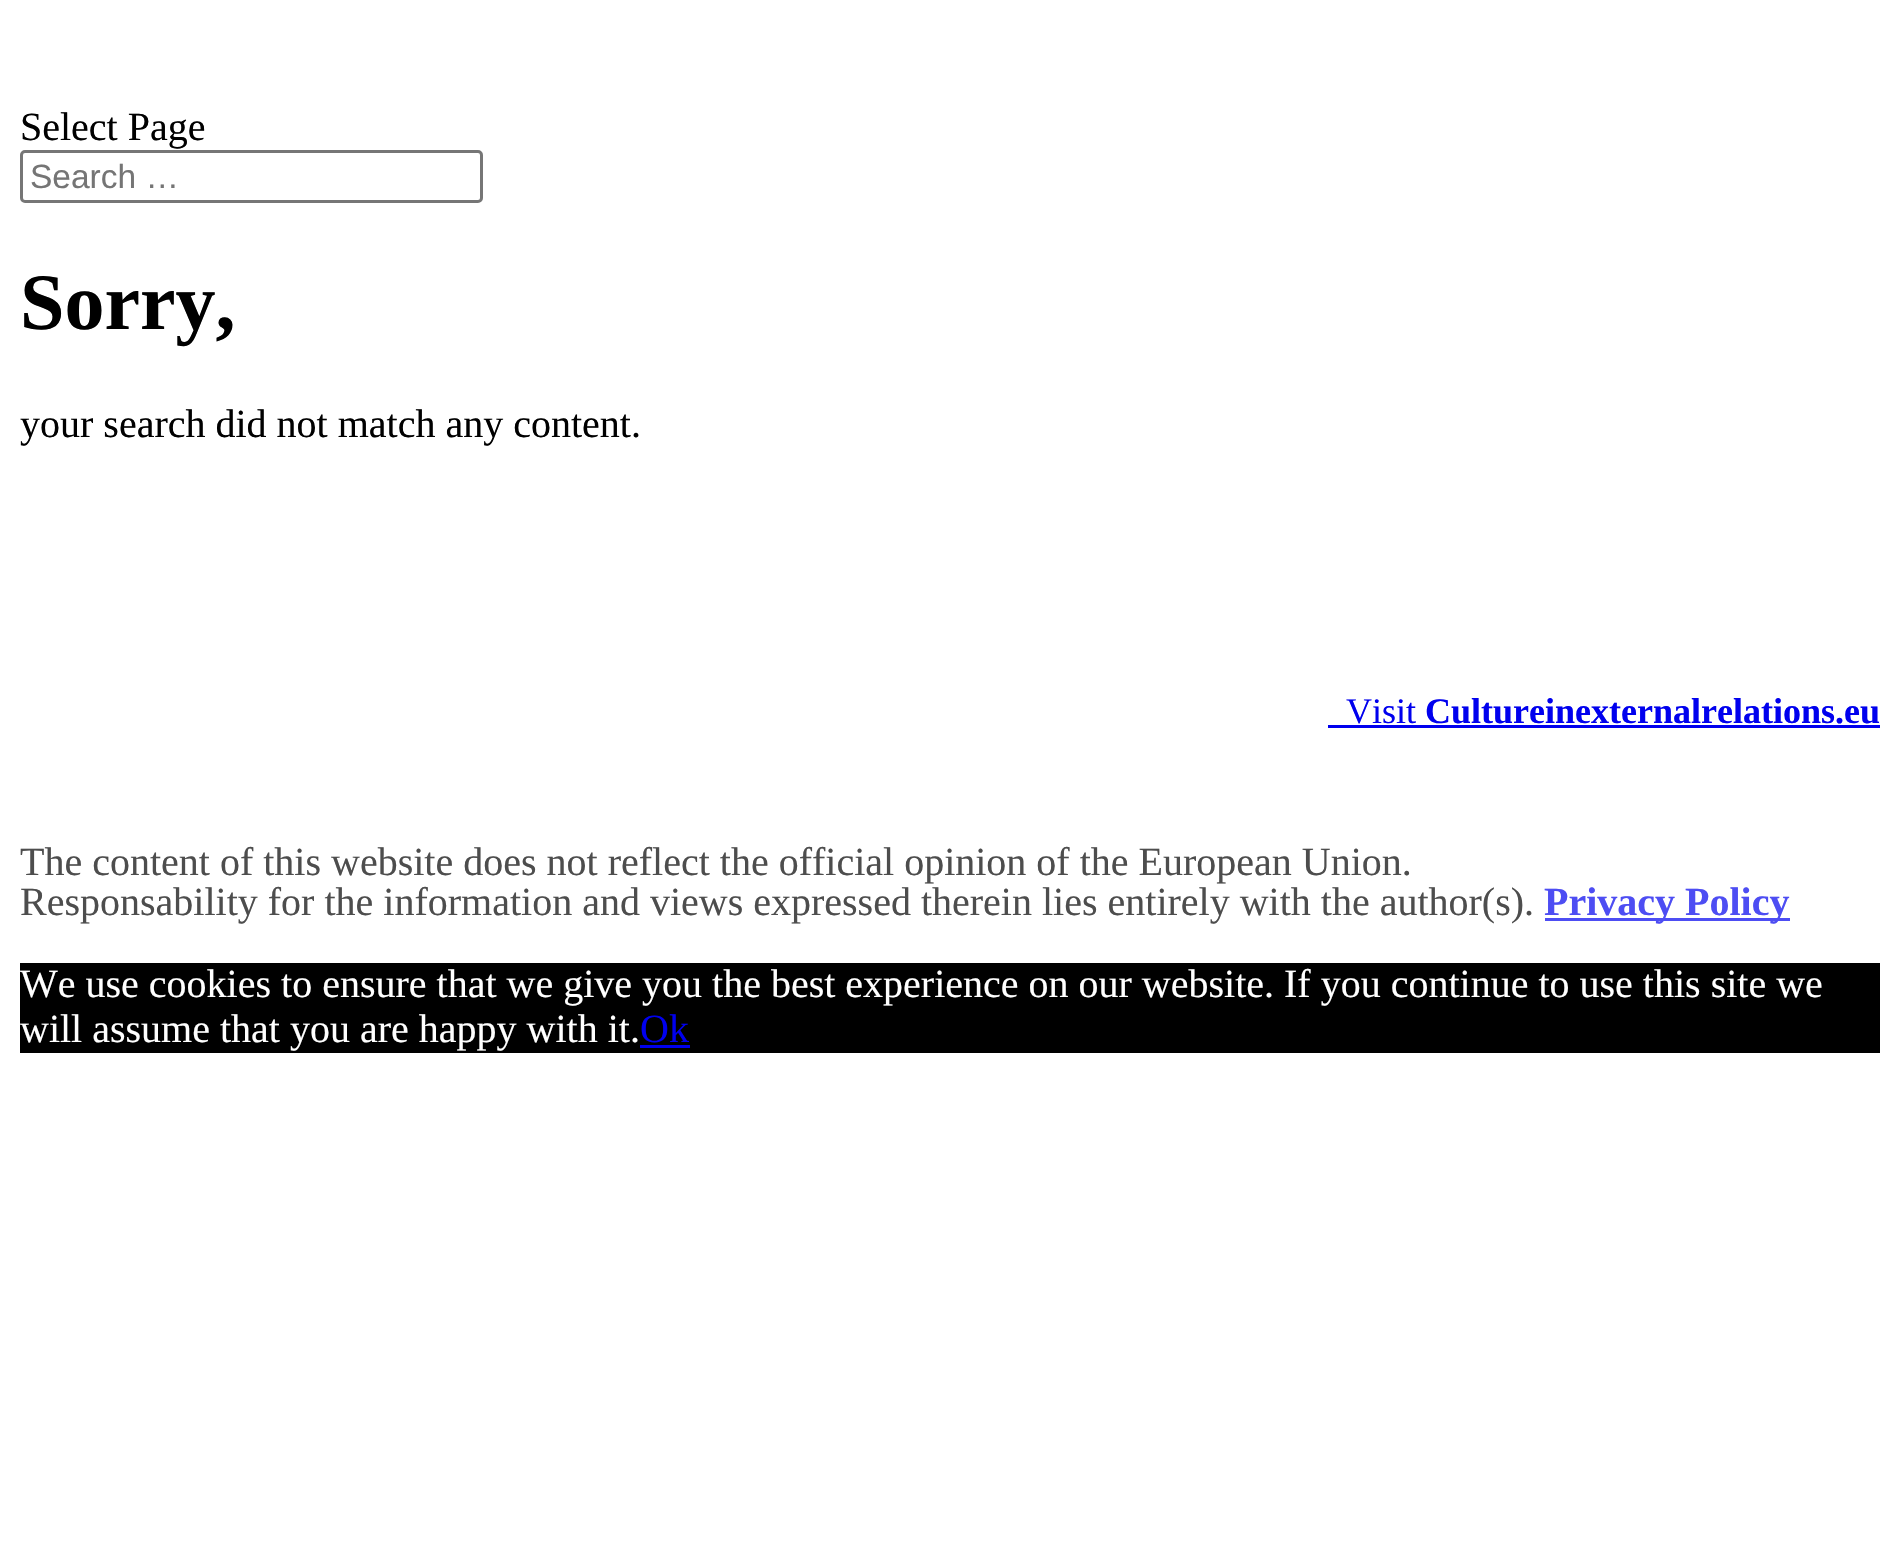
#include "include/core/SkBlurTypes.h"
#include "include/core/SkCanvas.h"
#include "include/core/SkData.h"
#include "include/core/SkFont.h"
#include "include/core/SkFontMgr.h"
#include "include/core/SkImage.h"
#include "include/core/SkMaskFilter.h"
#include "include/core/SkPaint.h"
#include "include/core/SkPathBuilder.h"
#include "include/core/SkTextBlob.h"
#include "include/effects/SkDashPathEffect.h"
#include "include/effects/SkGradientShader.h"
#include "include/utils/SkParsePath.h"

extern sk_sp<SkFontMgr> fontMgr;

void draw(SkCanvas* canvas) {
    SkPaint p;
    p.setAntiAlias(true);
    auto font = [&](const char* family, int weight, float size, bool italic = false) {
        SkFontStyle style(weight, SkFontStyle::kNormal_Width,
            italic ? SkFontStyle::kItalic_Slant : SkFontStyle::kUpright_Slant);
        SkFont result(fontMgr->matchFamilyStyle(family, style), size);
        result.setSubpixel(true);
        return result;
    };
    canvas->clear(0xFFFFFFFF);
    auto font1 = font("Liberation Serif", 400, 40);
    p.setColor(0xFF000000);
    canvas->drawString("Select Page", 20, 140, font1, p);
    p.setStyle(SkPaint::kStroke_Style);
    p.setStrokeWidth(3);
    p.setColor(0xFF767676);
    canvas->drawRoundRect(SkRect::MakeLTRB(21.5f, 151.5f, 481.5f, 201.5f), 3.5f, 3.5f, p);
    auto font2 = font("Liberation Sans", 400, 33.5f);
    p.setStyle(SkPaint::kFill_Style);
    p.setColor(0xFF757575);
    canvas->drawString("Search …", 30, 188, font2, p);
    auto font3 = font("Liberation Serif", 700, 80);
    p.setColor(0xFF000000);
    canvas->drawString("Sorry,", 20, 329, font3, p);
    canvas->drawString("your search did not match any content.", 20, 437, font1, p);
    auto font4 = font("Liberation Serif", 400, 36);
    p.setColor(0xFF0000EE);
    canvas->drawString("Visit", 1346, 723, font4, p);
    canvas->drawRect(SkRect::MakeLTRB(1328, 725, 1880, 728), p);
    auto font5 = font("Liberation Serif", 700, 36);
    canvas->drawString("Cultureinexternalrelations.eu", 1425, 723, font5, p);
    p.setColor(0xFF4D4D4D);
    canvas->drawString("The content of this website does not reflect the official opinion of the European Union.", 20, 875, font1, p);
    canvas->drawString("Responsability for the information and views expressed therein lies entirely with the author(s).", 20, 915, font1, p);
    p.setColor(0xFF4D4DF3);
    canvas->drawRect(SkRect::MakeLTRB(1545, 918, 1790, 921), p);
    auto font6 = font("Liberation Serif", 700, 40);
    canvas->drawString("Privacy Policy", 1544, 915, font6, p);
    p.setColor(0xFF000000);
    canvas->drawRect(SkRect::MakeLTRB(20, 963, 1880, 1053), p);
    p.setColor(0xFFFFFFFF);
    canvas->drawString("We use cookies to ensure that we give you the best experience on our website. If you continue to use this site we", 20, 997, font1, p);
    canvas->drawString("will assume that you are happy with it.", 20, 1042, font1, p);
    p.setColor(0xFF0000EE);
    canvas->drawString("Ok", 640, 1042, font1, p);
    canvas->drawRect(SkRect::MakeLTRB(640, 1045, 690, 1048), p);
}
